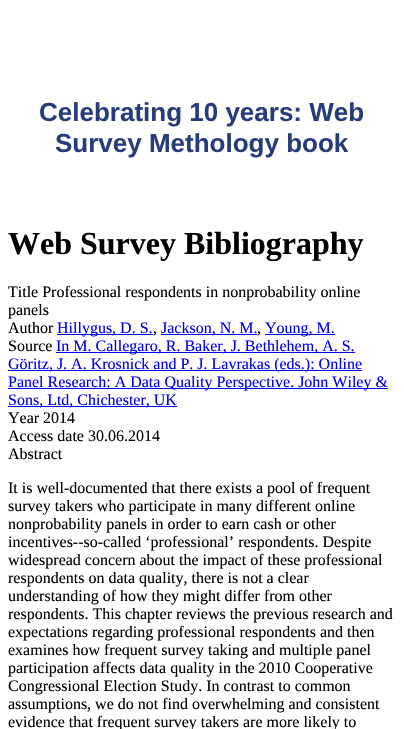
#include "include/core/SkBlurTypes.h"
#include "include/core/SkCanvas.h"
#include "include/core/SkData.h"
#include "include/core/SkFont.h"
#include "include/core/SkFontMgr.h"
#include "include/core/SkImage.h"
#include "include/core/SkMaskFilter.h"
#include "include/core/SkPaint.h"
#include "include/core/SkPathBuilder.h"
#include "include/core/SkTextBlob.h"
#include "include/effects/SkDashPathEffect.h"
#include "include/effects/SkGradientShader.h"
#include "include/utils/SkParsePath.h"

extern sk_sp<SkFontMgr> fontMgr;

void draw(SkCanvas* canvas) {
    SkPaint p;
    p.setAntiAlias(true);
    auto font = [&](const char* family, int weight, float size, bool italic = false) {
        SkFontStyle style(weight, SkFontStyle::kNormal_Width,
            italic ? SkFontStyle::kItalic_Slant : SkFontStyle::kUpright_Slant);
        SkFont result(fontMgr->matchFamilyStyle(family, style), size);
        result.setSubpixel(true);
        return result;
    };
    canvas->clear(0xFFFFFFFF);
    auto font1 = font("Liberation Sans", 700, 26);
    p.setColor(0xFF273C7A);
    canvas->drawString("Celebrating 10 years: Web", 39, 121, font1, p);
    canvas->drawString("Survey Methology book", 55, 152, font1, p);
    auto font2 = font("Liberation Serif", 700, 32);
    p.setColor(0xFF000000);
    canvas->drawString("Web Survey Bibliography", 8, 254, font2, p);
    auto font3 = font("Liberation Serif", 400, 16);
    {
        const struct { const char* s; float x, y; } items[] = {
            {"Title Professional respondents in nonprobability online", 8, 297},
            {"panels", 8, 315},
            {"Author", 8, 333},
        };
        for (auto [s, x, y] : items) {
            canvas->drawString(s, x, y, font3, p);
        }
    }
    p.setColor(0xFF0000EE);
    canvas->drawRect(SkRect::MakeLTRB(57, 334, 153, 335), p);
    canvas->drawString("Hillygus, D. S.", 57, 333, font3, p);
    p.setColor(0xFF000000);
    canvas->drawString(",", 153, 333, font3, p);
    p.setColor(0xFF0000EE);
    canvas->drawRect(SkRect::MakeLTRB(161, 334, 257, 335), p);
    canvas->drawString("Jackson, N. M.", 161, 333, font3, p);
    p.setColor(0xFF000000);
    canvas->drawString(",", 257, 333, font3, p);
    p.setColor(0xFF0000EE);
    canvas->drawRect(SkRect::MakeLTRB(265, 334, 335, 335), p);
    canvas->drawString("Young, M.", 265, 333, font3, p);
    p.setColor(0xFF000000);
    canvas->drawString("Source", 8, 351, font3, p);
    p.setColor(0xFF0000EE);
    canvas->drawRect(SkRect::MakeLTRB(56, 352, 355, 353), p);
    canvas->drawString("In M. Callegaro, R. Baker, J. Bethlehem, A. S.", 56, 351, font3, p);
    canvas->drawRect(SkRect::MakeLTRB(8, 370, 362, 371), p);
    canvas->drawString("Göritz, J. A. Krosnick and P. J. Lavrakas (eds.): Online", 8, 369, font3, p);
    canvas->drawRect(SkRect::MakeLTRB(8, 388, 388, 389), p);
    canvas->drawString("Panel Research: A Data Quality Perspective. John Wiley &", 8, 387, font3, p);
    canvas->drawRect(SkRect::MakeLTRB(8, 406, 177, 407), p);
    canvas->drawString("Sons, Ltd, Chichester, UK", 8, 405, font3, p);
    p.setColor(0xFF000000);
    {
        const struct { const char* s; float x, y; } items[] = {
            {"Year 2014", 8, 423},
            {"Access date 30.06.2014", 8, 441},
            {"Abstract", 8, 459},
            {"It is well-documented that there exists a pool of frequent", 8, 493},
            {"survey takers who participate in many different online", 8, 511},
            {"nonprobability panels in order to earn cash or other", 8, 529},
            {"incentives--so-called ‘professional’ respondents. Despite", 8, 547},
            {"widespread concern about the impact of these professional", 8, 565},
            {"respondents on data quality, there is not a clear", 8, 583},
            {"understanding of how they might differ from other", 8, 601},
            {"respondents. This chapter reviews the previous research and", 8, 619},
            {"expectations regarding professional respondents and then", 8, 637},
            {"examines how frequent survey taking and multiple panel", 8, 655},
            {"participation affects data quality in the 2010 Cooperative", 8, 673},
            {"Congressional Election Study. In contrast to common", 8, 691},
            {"assumptions, we do not find overwhelming and consistent", 8, 709},
            {"evidence that frequent survey takers are more likely to", 8, 727},
        };
        for (auto [s, x, y] : items) {
            canvas->drawString(s, x, y, font3, p);
        }
    }
}
